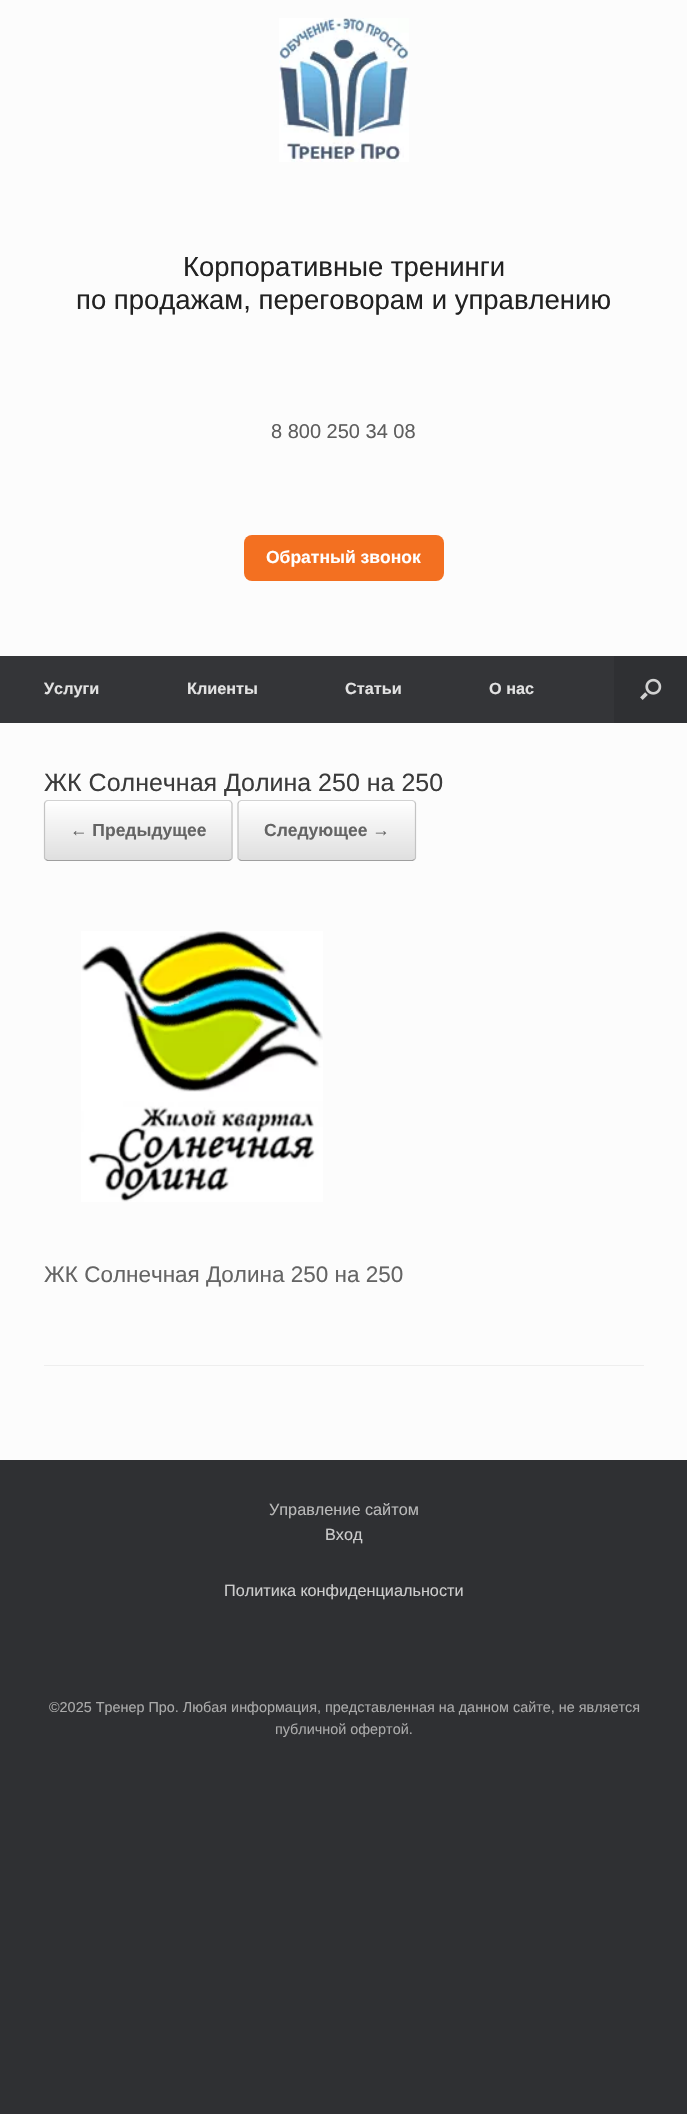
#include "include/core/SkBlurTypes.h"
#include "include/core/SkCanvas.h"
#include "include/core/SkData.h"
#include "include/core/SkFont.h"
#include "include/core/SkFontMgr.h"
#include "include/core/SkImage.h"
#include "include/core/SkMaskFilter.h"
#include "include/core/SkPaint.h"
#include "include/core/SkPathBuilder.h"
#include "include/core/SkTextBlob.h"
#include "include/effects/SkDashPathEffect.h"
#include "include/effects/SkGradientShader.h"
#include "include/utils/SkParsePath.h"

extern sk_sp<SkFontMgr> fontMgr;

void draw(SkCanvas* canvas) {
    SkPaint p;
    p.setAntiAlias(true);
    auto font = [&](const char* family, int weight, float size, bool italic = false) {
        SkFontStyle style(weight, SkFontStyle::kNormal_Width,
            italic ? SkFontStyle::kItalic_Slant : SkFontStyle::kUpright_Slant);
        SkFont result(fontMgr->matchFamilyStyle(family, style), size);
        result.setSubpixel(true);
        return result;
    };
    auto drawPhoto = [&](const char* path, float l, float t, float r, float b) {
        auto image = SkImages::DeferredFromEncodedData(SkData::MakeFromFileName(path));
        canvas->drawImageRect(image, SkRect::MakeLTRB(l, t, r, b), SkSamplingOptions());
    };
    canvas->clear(0xFF2F3033);
    p.setColor(0xFFFCFCFC);
    canvas->drawRect(SkRect::MakeLTRB(0, 0, 687, 656), p);
    drawPhoto("media/1.png", 279, 18, 409, 162);
    auto font1 = font("Liberation Sans", 400, 27.5f);
    p.setColor(0xFF222222);
    canvas->drawString("Корпоративные тренинги", 183, 276, font1, p);
    canvas->drawString("по продажам, переговорам и управлению", 76, 309, font1, p);
    auto font2 = font("Liberation Sans", 400, 20);
    p.setColor(0xFF5E5E5E);
    canvas->drawString("8 800 250 34 08", 271, 438, font2, p);
    p.setColor(0xFFF37021);
    canvas->drawRoundRect(SkRect::MakeLTRB(244, 535, 444, 581), 8, 8, p);
    auto font3 = font("Liberation Sans", 700, 17.5f);
    p.setColor(0xFFFFFFFF);
    canvas->drawString("Обратный звонок", 266, 563, font3, p);
    p.setColor(0xFF343538);
    canvas->drawRect(SkRect::MakeLTRB(0, 656, 614, 723), p);
    auto font4 = font("Liberation Sans", 700, 16.25f);
    p.setColor(0xFFE2E2E2);
    {
        const struct { const char* s; float x, y; } items[] = {
            {"Услуги", 44, 694},
            {"Клиенты", 187, 694},
            {"Статьи", 345, 694},
            {"О нас", 489, 694},
        };
        for (auto [s, x, y] : items) {
            canvas->drawString(s, x, y, font4, p);
        }
    }
    drawPhoto("media/2.png", 640, 678, 662, 700);
    p.setColor(0xFFFCFCFC);
    canvas->drawRect(SkRect::MakeLTRB(0, 723, 687, 1460), p);
    p.setColor(0xFFEEEEEE);
    canvas->drawRect(SkRect::MakeLTRB(44, 1365, 644, 1366), p);
    auto font5 = font("Liberation Sans", 400, 25);
    p.setColor(0xFF3B3B3B);
    canvas->drawString("ЖК Солнечная Долина 250 на 250", 44, 791, font5, p);
    canvas->save();
    canvas->clipPath(SkPathBuilder().moveTo(48, 800).lineTo(229, 800).cubicTo(231, 800, 233, 802, 233, 804).lineTo(233, 857).cubicTo(233, 859, 231, 861, 229, 861).lineTo(48, 861).cubicTo(46, 861, 44, 859, 44, 857).lineTo(44, 804).cubicTo(44, 802, 46, 800, 48, 800).close().detach(), true);
    {
        const SkColor colors[] = {0xFFDFDFDF, 0xFFFFFFFF};
        const float stops[] = {0, 1};
        const SkPoint ends[] = {{45, 801}, {45, 743}};
        p.setShader(SkGradientShader::MakeLinear(ends, colors, stops, 2, SkTileMode::kClamp));
        p.setAlpha(255);
    }
    canvas->drawRect(SkRect::MakeLTRB(44, 800, 233, 801), p);
    {
        const SkColor colors[] = {0xFFDFDFDF, 0xFFFFFFFF};
        const float stops[] = {0, 1};
        const SkPoint ends[] = {{45, 860}, {45, 801}};
        p.setShader(SkGradientShader::MakeLinear(ends, colors, stops, 2, SkTileMode::kClamp));
        p.setAlpha(255);
    }
    canvas->drawRect(SkRect::MakeLTRB(44, 801, 233, 860), p);
    {
        const SkColor colors[] = {0xFFDFDFDF, 0xFFFFFFFF};
        const float stops[] = {0, 1};
        const SkPoint ends[] = {{45, 919}, {45, 860}};
        p.setShader(SkGradientShader::MakeLinear(ends, colors, stops, 2, SkTileMode::kClamp));
        p.setAlpha(255);
    }
    canvas->drawRect(SkRect::MakeLTRB(44, 860, 233, 861), p);
    canvas->restore();
    p.setStyle(SkPaint::kStroke_Style);
    p.setStrokeWidth(1.2f);
    p.setShader(nullptr);
    p.setColor(0xFFD2D2D2);
    canvas->drawPath(SkPathBuilder().moveTo(45.5f, 801.5f).lineTo(47.5f, 800.5f).lineTo(229, 800.5f).lineTo(231, 801.5f).detach(), p);
    p.setColor(0xFFC3C3C3);
    canvas->drawPath(SkPathBuilder().moveTo(231, 801.5f).lineTo(232, 803.5f).lineTo(232, 858).lineTo(231, 859.5f).detach(), p);
    p.setColor(0xFF9F9F9F);
    canvas->drawPath(SkPathBuilder().moveTo(231, 859.5f).lineTo(229, 860.5f).lineTo(47.5f, 860.5f).lineTo(45.5f, 859.5f).detach(), p);
    p.setColor(0xFFC3C3C3);
    canvas->drawPath(SkPathBuilder().moveTo(45.5f, 859.5f).lineTo(44.5f, 858).lineTo(44.5f, 803.5f).lineTo(45.5f, 801.5f).detach(), p);
    p.setStyle(SkPaint::kFill_Style);
    p.setColor(0xFF646464);
    canvas->drawString("← Предыдущее", 70, 836, font3, p);
    canvas->save();
    canvas->clipPath(SkPathBuilder().moveTo(242, 800).lineTo(412, 800).cubicTo(414, 800, 416, 802, 416, 804).lineTo(416, 857).cubicTo(416, 859, 414, 861, 412, 861).lineTo(242, 861).cubicTo(240, 861, 238, 859, 238, 857).lineTo(238, 804).cubicTo(238, 802, 240, 800, 242, 800).close().detach(), true);
    {
        const SkColor colors[] = {0xFFDFDFDF, 0xFFFFFFFF};
        const float stops[] = {0, 1};
        const SkPoint ends[] = {{239, 860}, {239, 801}};
        p.setShader(SkGradientShader::MakeLinear(ends, colors, stops, 2, SkTileMode::kClamp));
        p.setAlpha(255);
    }
    canvas->drawRect(SkRect::MakeLTRB(238, 801, 416, 860), p);
    canvas->restore();
    p.setStyle(SkPaint::kStroke_Style);
    p.setShader(nullptr);
    p.setColor(0xFFD2D2D2);
    canvas->drawPath(SkPathBuilder().moveTo(239, 801.5f).lineTo(241, 800.5f).lineTo(412.5f, 800.5f).lineTo(414.5f, 801.5f).detach(), p);
    p.setColor(0xFFC3C3C3);
    canvas->drawPath(SkPathBuilder().moveTo(414.5f, 801.5f).lineTo(415.5f, 803.5f).lineTo(415.5f, 858).lineTo(414.5f, 859.5f).detach(), p);
    p.setColor(0xFF9F9F9F);
    canvas->drawPath(SkPathBuilder().moveTo(414.5f, 859.5f).lineTo(412.5f, 860.5f).lineTo(241, 860.5f).lineTo(239, 859.5f).detach(), p);
    p.setColor(0xFFC3C3C3);
    canvas->drawPath(SkPathBuilder().moveTo(239, 859.5f).lineTo(238, 858).lineTo(238, 803.5f).lineTo(239, 801.5f).detach(), p);
    p.setStyle(SkPaint::kFill_Style);
    p.setColor(0xFF646464);
    canvas->drawString("Следующее →", 264, 836, font3, p);
    drawPhoto("media/3.png", 81, 931, 323, 1202);
    auto font6 = font("Liberation Sans", 400, 22.5f);
    canvas->drawString("ЖК Солнечная Долина 250 на 250", 44, 1282, font6, p);
    auto font7 = font("Liberation Sans", 400, 16.25f);
    p.setColor(0xFFB9B9B9);
    canvas->drawString("Управление сайтом", 269, 1515, font7, p);
    p.setColor(0xFFCCCCCC);
    canvas->drawString("Вход", 325, 1540, font7, p);
    canvas->drawString("Политика конфиденциальности", 224, 1596, font7, p);
    auto font8 = font("Liberation Sans", 400, 14.4f);
    p.setColor(0xFFAAAAAA);
    canvas->drawString("©2025 Тренер Про. Любая информация, представленная на данном сайте, не является", 49, 1712, font8, p);
    canvas->drawString("публичной офертой.", 275, 1734, font8, p);
}
